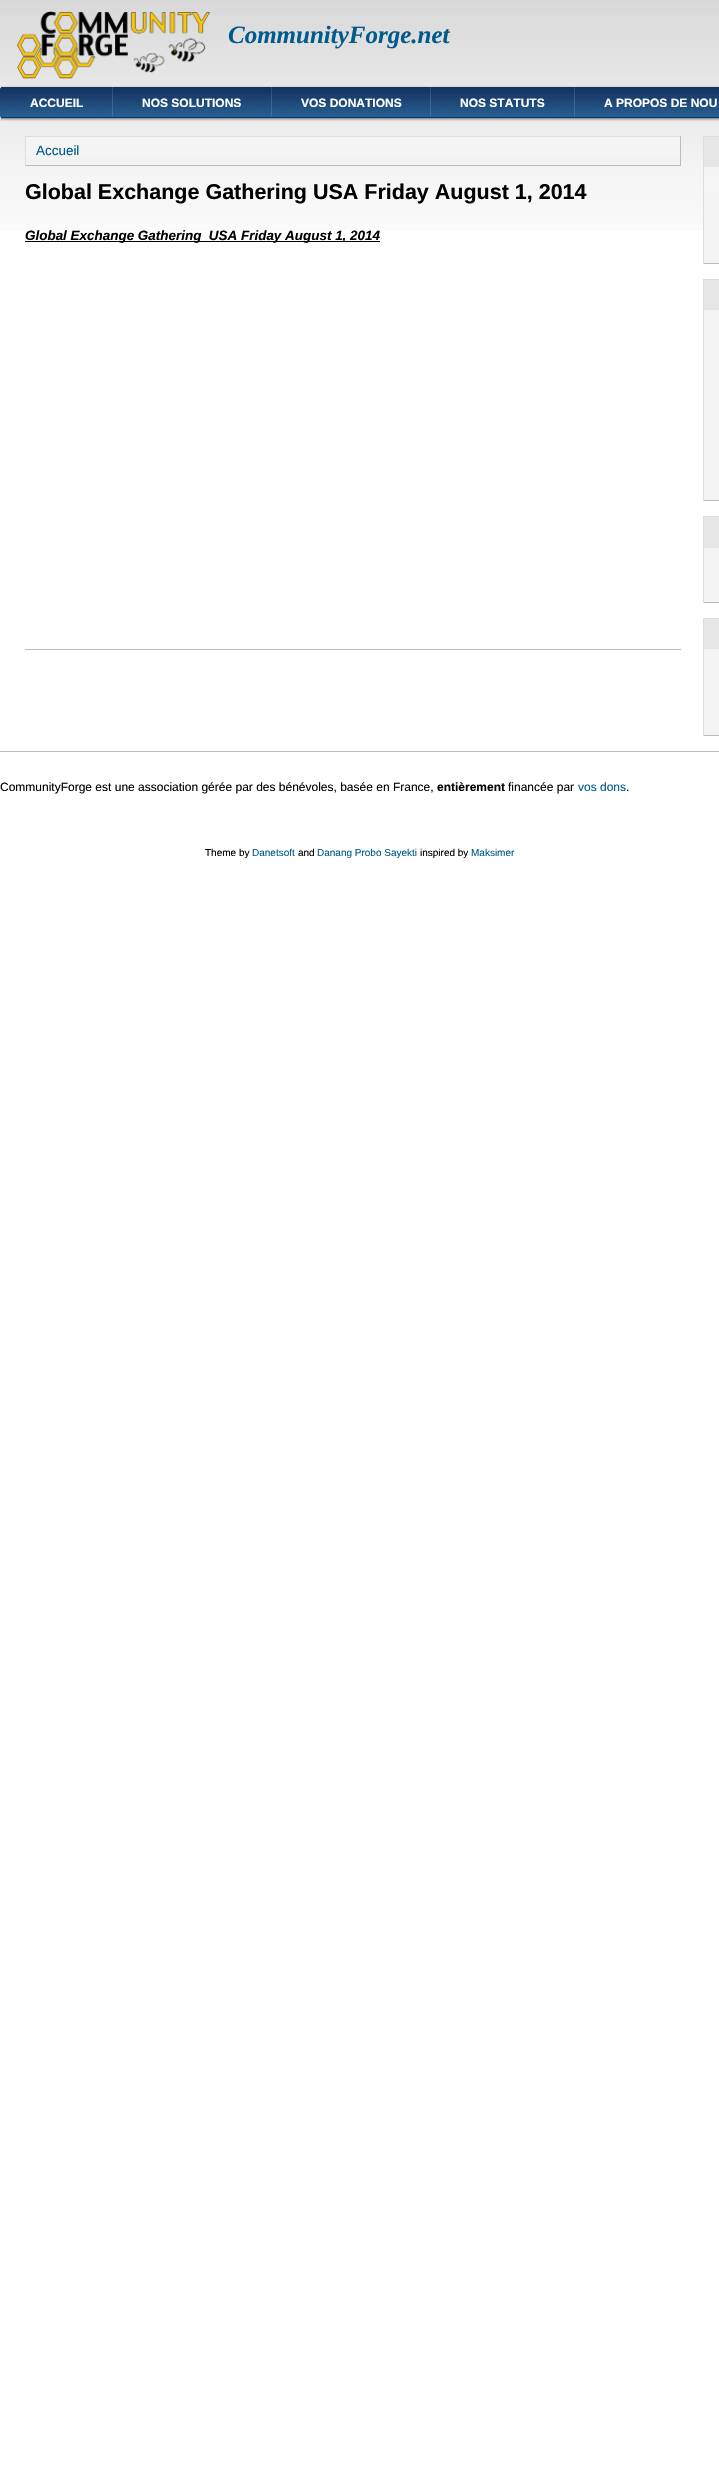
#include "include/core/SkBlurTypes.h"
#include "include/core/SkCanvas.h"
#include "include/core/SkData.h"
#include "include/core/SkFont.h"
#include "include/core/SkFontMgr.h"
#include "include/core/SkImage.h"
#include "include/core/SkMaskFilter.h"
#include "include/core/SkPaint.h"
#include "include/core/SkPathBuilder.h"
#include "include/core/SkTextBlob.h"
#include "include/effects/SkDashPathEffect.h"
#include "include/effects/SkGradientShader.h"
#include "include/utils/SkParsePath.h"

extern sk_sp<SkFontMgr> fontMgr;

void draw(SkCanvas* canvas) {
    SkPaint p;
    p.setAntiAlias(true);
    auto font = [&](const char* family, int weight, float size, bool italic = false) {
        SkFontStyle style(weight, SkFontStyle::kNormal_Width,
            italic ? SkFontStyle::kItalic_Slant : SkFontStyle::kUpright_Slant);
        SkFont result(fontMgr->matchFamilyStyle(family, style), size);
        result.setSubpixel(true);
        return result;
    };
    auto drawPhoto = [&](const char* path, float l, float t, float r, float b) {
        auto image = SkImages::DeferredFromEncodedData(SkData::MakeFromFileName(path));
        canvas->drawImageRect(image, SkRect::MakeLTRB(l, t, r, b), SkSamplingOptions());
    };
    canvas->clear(0xFFFFFFFF);
    drawPhoto("media/1.png", 0, 0, 719, 230);
    drawPhoto("media/2.png", 17, 11, 211, 79);
    auto font1 = font("Liberation Serif", 700, 25, true);
    p.setColor(0xFF005A8C);
    canvas->drawString("CommunityForge.net", 228, 43, font1, p);
    drawPhoto("media/3.png", 1, 86, 719, 121);
    drawPhoto("media/4.png", 0, 86, 1, 121);
    drawPhoto("media/5.png", 112, 87, 113, 118);
    auto font2 = font("Liberation Sans", 700, 12);
    p.setColor(0xFFFFFFFF);
    canvas->drawString("ACCUEIL", 30, 107, font2, p);
    drawPhoto("media/5.png", 271, 87, 272, 118);
    canvas->drawString("NOS SOLUTIONS", 142, 107, font2, p);
    drawPhoto("media/5.png", 430, 87, 431, 118);
    canvas->drawString("VOS DONATIONS", 301, 107, font2, p);
    drawPhoto("media/5.png", 574, 87, 575, 118);
    canvas->drawString("NOS STATUTS", 460, 107, font2, p);
    canvas->drawString("A PROPOS DE NOU", 604, 107, font2, p);
    {
        const struct { float l, t, r, b; SkColor color; } items[] = {
            {26, 137, 680, 155, 0xFFF4F4F4},
            {25, 136, 681, 137, 0xFFDDDDDD},
            {680, 136, 681, 166, 0xFFBBBBBB},
            {25, 165, 681, 166, 0xFFBBBBBB},
            {25, 136, 26, 166, 0xFFDDDDDD},
        };
        for (auto [l, t, r, b, color] : items) {
            p.setColor(color);
            canvas->drawRect(SkRect::MakeLTRB(l, t, r, b), p);
        }
    }
    auto font3 = font("Liberation Sans", 400, 13.45f);
    p.setColor(0xFF005A8C);
    canvas->drawString("Accueil", 36, 155, font3, p);
    auto font4 = font("Liberation Sans", 700, 21.5f);
    p.setColor(0xFF000000);
    canvas->drawString("Global Exchange Gathering USA Friday August 1, 2014", 25, 199, font4, p);
    p.setColor(0xFFBBBBBB);
    canvas->drawRect(SkRect::MakeLTRB(25, 649, 681, 650), p);
    p.setColor(0xFF000000);
    canvas->drawRect(SkRect::MakeLTRB(25, 241, 380, 242), p);
    auto font5 = font("Liberation Sans", 700, 13.45f, true);
    canvas->drawString("Global Exchange Gathering  USA Friday August 1, 2014", 25, 240, font5, p);
    {
        const struct { float l, t, r, b; SkColor color; } items[] = {
            {704, 191, 719, 263, 0xFFF4F4F4},
            {703, 136, 719, 137, 0xFFDDDDDD},
            {703, 263, 719, 264, 0xFFBBBBBB},
            {703, 136, 704, 264, 0xFFDDDDDD},
            {704, 137, 719, 167, 0xFFE6E6E6},
            {704, 310, 719, 500, 0xFFF4F4F4},
            {703, 279, 719, 280, 0xFFDDDDDD},
            {703, 500, 719, 501, 0xFFBBBBBB},
            {703, 279, 704, 501, 0xFFDDDDDD},
            {704, 280, 719, 310, 0xFFE6E6E6},
            {704, 548, 719, 602, 0xFFF4F4F4},
            {703, 516, 719, 517, 0xFFDDDDDD},
            {703, 602, 719, 603, 0xFFBBBBBB},
            {703, 516, 704, 603, 0xFFDDDDDD},
            {704, 517, 719, 548, 0xFFE6E6E6},
            {704, 649, 719, 735, 0xFFF4F4F4},
            {703, 618, 719, 619, 0xFFDDDDDD},
            {703, 735, 719, 736, 0xFFBBBBBB},
            {703, 618, 704, 736, 0xFFDDDDDD},
            {704, 619, 719, 649, 0xFFE6E6E6},
            {0, 751, 719, 752, 0xFFBBBBBB},
        };
        for (auto [l, t, r, b, color] : items) {
            p.setColor(color);
            canvas->drawRect(SkRect::MakeLTRB(l, t, r, b), p);
        }
    }
    auto font6 = font("Liberation Sans", 400, 12);
    p.setColor(0xFF000000);
    canvas->drawString("CommunityForge est une association gérée par des bénévoles, basée en France,", 0, 791, font6, p);
    canvas->drawString("entièrement", 437, 791, font2, p);
    canvas->drawString("financée par", 508, 791, font6, p);
    p.setColor(0xFF005A8C);
    canvas->drawString("vos dons", 578, 791, font6, p);
    p.setColor(0xFF000000);
    canvas->drawString(".", 626, 791, font6, p);
    auto font7 = font("Liberation Sans", 400, 10);
    canvas->drawString("Theme by", 205, 856, font7, p);
    p.setColor(0xFF005A8C);
    canvas->drawString("Danetsoft", 252, 856, font7, p);
    p.setColor(0xFF000000);
    canvas->drawString("and", 298, 856, font7, p);
    p.setColor(0xFF005A8C);
    canvas->drawString("Danang Probo Sayekti", 317, 856, font7, p);
    p.setColor(0xFF000000);
    canvas->drawString("inspired by", 420, 856, font7, p);
    p.setColor(0xFF005A8C);
    canvas->drawString("Maksimer", 471, 856, font7, p);
}
